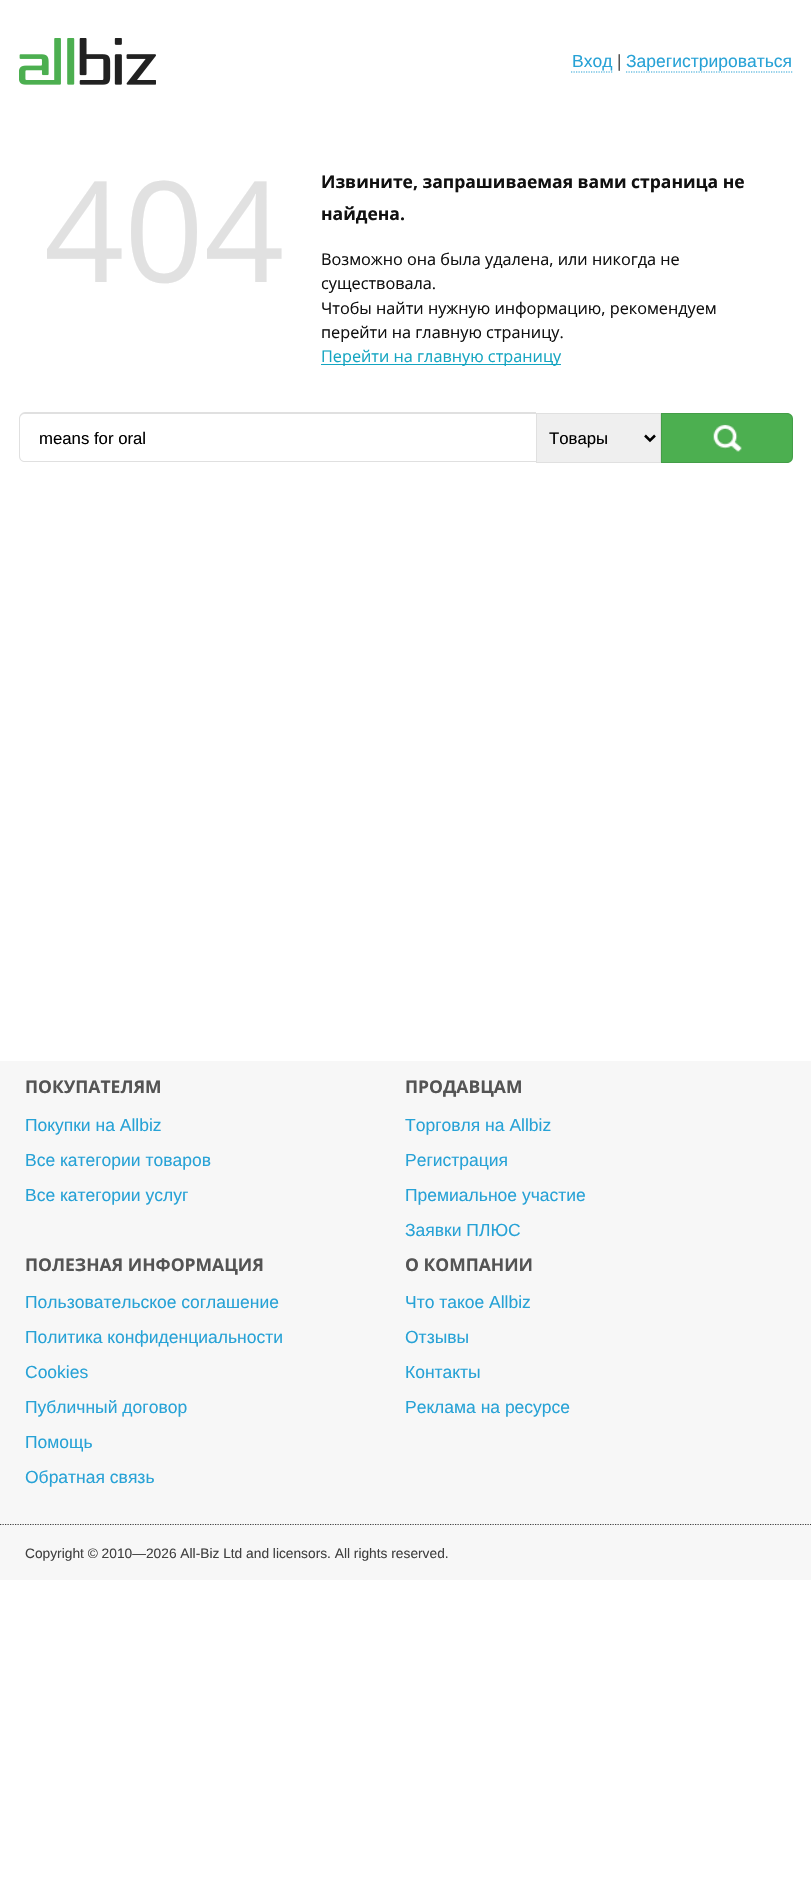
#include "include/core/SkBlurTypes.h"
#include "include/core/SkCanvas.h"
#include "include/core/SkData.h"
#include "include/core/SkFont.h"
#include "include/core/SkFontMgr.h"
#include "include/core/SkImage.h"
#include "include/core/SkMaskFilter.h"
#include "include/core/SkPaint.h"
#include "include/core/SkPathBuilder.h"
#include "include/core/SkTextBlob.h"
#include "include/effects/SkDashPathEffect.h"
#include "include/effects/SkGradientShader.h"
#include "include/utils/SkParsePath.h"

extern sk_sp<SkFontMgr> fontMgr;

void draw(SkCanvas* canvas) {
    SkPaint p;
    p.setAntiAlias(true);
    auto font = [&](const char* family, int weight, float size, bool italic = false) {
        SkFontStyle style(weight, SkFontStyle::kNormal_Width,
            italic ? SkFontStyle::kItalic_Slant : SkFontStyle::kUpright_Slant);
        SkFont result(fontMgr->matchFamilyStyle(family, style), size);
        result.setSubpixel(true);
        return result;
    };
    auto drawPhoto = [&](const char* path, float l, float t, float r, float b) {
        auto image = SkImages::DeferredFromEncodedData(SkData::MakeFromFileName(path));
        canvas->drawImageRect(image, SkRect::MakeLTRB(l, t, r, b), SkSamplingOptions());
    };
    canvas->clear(0xFFFFFFFF);
    drawPhoto("media/1.png", 19, 38, 156, 85);
    auto font1 = font("Liberation Sans", 400, 17.5f);
    p.setColor(0xFF27A2D6);
    canvas->drawString("Вход", 572, 67, font1, p);
    p.setStyle(SkPaint::kStroke_Style);
    p.setStrokeWidth(1.2f);
    p.setPathEffect(SkDashPathEffect::Make({{1.25f, 1.25f}}, 0));
    canvas->drawPath(SkPathBuilder().moveTo(571, 72).lineTo(612.5f, 72).detach(), p);
    p.setPathEffect(nullptr);
    p.setStyle(SkPaint::kFill_Style);
    p.setColor(0xFF545454);
    canvas->drawString("|", 617, 67, font1, p);
    p.setColor(0xFF27A2D6);
    canvas->drawString("Зарегистрироваться", 626, 67, font1, p);
    p.setStyle(SkPaint::kStroke_Style);
    p.setPathEffect(SkDashPathEffect::Make({{1.25f, 1.25f}}, 0));
    canvas->drawPath(SkPathBuilder().moveTo(626, 72).lineTo(792.5f, 72).detach(), p);
    p.setPathEffect(nullptr);
    auto font2 = font("Open Sans", 400, 140);
    p.setStyle(SkPaint::kFill_Style);
    p.setColor(0xFFE1E1E1);
    canvas->drawString("404", 44, 282, font2, p);
    auto font3 = font("Open Sans", 700, 17.5f);
    p.setColor(0xFF111111);
    canvas->drawString("Извините, запрашиваемая вами страница не", 321, 188, font3, p);
    canvas->drawString("найдена.", 321, 220, font3, p);
    auto font4 = font("Open Sans", 400, 16.25f);
    {
        const struct { const char* s; float x, y; } items[] = {
            {"Возможно она была удалена, или никогда не", 321, 265},
            {"существовала.", 321, 289},
            {"Чтобы найти нужную информацию, рекомендуем", 321, 314},
            {"перейти на главную страницу.", 321, 338},
        };
        for (auto [s, x, y] : items) {
            canvas->drawString(s, x, y, font4, p);
        }
    }
    p.setColor(0xFF14A5C1);
    canvas->drawRect(SkRect::MakeLTRB(321, 364, 561, 365), p);
    canvas->drawString("Перейти на главную страницу", 321, 362, font4, p);
    p.setColor(0xFFE0E0E0);
    canvas->drawPath(SkPathBuilder(SkPathFillType::kEvenOdd).moveTo(25, 412).lineTo(536, 412).lineTo(536, 462).lineTo(25, 462).cubicTo(22, 462, 19, 460, 19, 456).lineTo(19, 419).cubicTo(19, 415, 22, 412, 25, 412).close().moveTo(25, 414).lineTo(536, 414).lineTo(536, 461).lineTo(25, 461).cubicTo(22, 461, 20, 459, 20, 456).lineTo(20, 419).cubicTo(20, 416, 22, 414, 25, 414).close().detach(), p);
    auto font5 = font("Liberation Sans", 400, 16.75f);
    p.setColor(0xFF000000);
    canvas->drawString("means for oral", 39, 444, font5, p);
    p.setColor(0xFFEFEFEF);
    canvas->drawRect(SkRect::MakeLTRB(536.5f, 413.5f, 660.5f, 462.5f), p);
    p.setStyle(SkPaint::kStroke_Style);
    p.setStrokeWidth(1);
    p.setColor(0xFFE0E0E0);
    canvas->drawRect(SkRect::MakeLTRB(536.5f, 413.5f, 660.5f, 462.5f), p);
    p.setStrokeWidth(2.5f);
    p.setColor(0xFF000000);
    canvas->drawPath(SkPathBuilder().moveTo(645, 435.5f).lineTo(650, 440.5f).lineTo(655, 435.5f).detach(), p);
    p.setStyle(SkPaint::kFill_Style);
    canvas->drawString("Товары", 549, 444, font5, p);
    p.setColor(0xFF4CAF50);
    canvas->drawPath(SkPathBuilder().moveTo(661, 413).lineTo(787, 413).cubicTo(790.5f, 413, 793, 415.5f, 793, 419).lineTo(793, 457).cubicTo(793, 460.5f, 790.5f, 463, 787, 463).lineTo(661, 463).close().detach(), p);
    drawPhoto("media/2.png", 713, 424, 742, 452);
    p.setStyle(SkPaint::kStroke_Style);
    p.setStrokeWidth(1);
    p.setColor(0x1A000000);
    canvas->drawPath(SkPathBuilder().moveTo(661.5f, 413.5f).lineTo(787, 413.5f).cubicTo(790, 413.5f, 792.5f, 416, 792.5f, 419).lineTo(792.5f, 457).cubicTo(792.5f, 460, 790, 462.5f, 787, 462.5f).lineTo(661.5f, 462.5f).close().detach(), p);
    p.setStyle(SkPaint::kFill_Style);
    p.setColor(0xFFF7F7F7);
    canvas->drawRect(SkRect::MakeLTRB(0, 1061, 811, 1580), p);
    p.setColor(0xFF545454);
    canvas->drawString("ПОКУПАТЕЛЯМ", 25, 1093, font3, p);
    p.setColor(0xFF27A2D6);
    {
        const struct { const char* s; float x, y; } items[] = {
            {"Покупки на Allbiz", 25, 1131},
            {"Все категории товаров", 25, 1166},
            {"Все категории услуг", 25, 1201},
        };
        for (auto [s, x, y] : items) {
            canvas->drawString(s, x, y, font1, p);
        }
    }
    p.setColor(0xFF545454);
    canvas->drawString("ПРОДАВЦАМ", 405, 1093, font3, p);
    p.setColor(0xFF27A2D6);
    {
        const struct { const char* s; float x, y; } items[] = {
            {"Торговля на Allbiz", 405, 1131},
            {"Регистрация", 405, 1166},
            {"Премиальное участие", 405, 1201},
            {"Заявки ПЛЮС", 405, 1236},
        };
        for (auto [s, x, y] : items) {
            canvas->drawString(s, x, y, font1, p);
        }
    }
    p.setColor(0xFF545454);
    canvas->drawString("ПОЛЕЗНАЯ ИНФОРМАЦИЯ", 25, 1271, font3, p);
    p.setColor(0xFF27A2D6);
    {
        const struct { const char* s; float x, y; } items[] = {
            {"Пользовательское соглашение", 25, 1308},
            {"Политика конфиденциальности", 25, 1343},
            {"Cookies", 25, 1378},
            {"Публичный договор", 25, 1413},
            {"Помощь", 25, 1448},
            {"Обратная связь", 25, 1483},
        };
        for (auto [s, x, y] : items) {
            canvas->drawString(s, x, y, font1, p);
        }
    }
    p.setColor(0xFF545454);
    canvas->drawString("О КОМПАНИИ", 405, 1271, font3, p);
    p.setColor(0xFF27A2D6);
    {
        const struct { const char* s; float x, y; } items[] = {
            {"Что такое Allbiz", 405, 1308},
            {"Отзывы", 405, 1343},
            {"Контакты", 405, 1378},
            {"Реклама на ресурсе", 405, 1413},
        };
        for (auto [s, x, y] : items) {
            canvas->drawString(s, x, y, font1, p);
        }
    }
    p.setStyle(SkPaint::kStroke_Style);
    p.setStrokeWidth(1.2f);
    p.setColor(0xFF404040);
    p.setPathEffect(SkDashPathEffect::Make({{1.25f, 1.25f}}, 0));
    canvas->drawPath(SkPathBuilder().moveTo(0, 1524.5f).lineTo(811, 1524.5f).detach(), p);
    p.setPathEffect(nullptr);
    auto font6 = font("Liberation Sans", 400, 13.75f);
    p.setStyle(SkPaint::kFill_Style);
    canvas->drawString("Copyright © 2010—2026 All-Biz Ltd and licensors. All rights reserved.", 25, 1558, font6, p);
}
